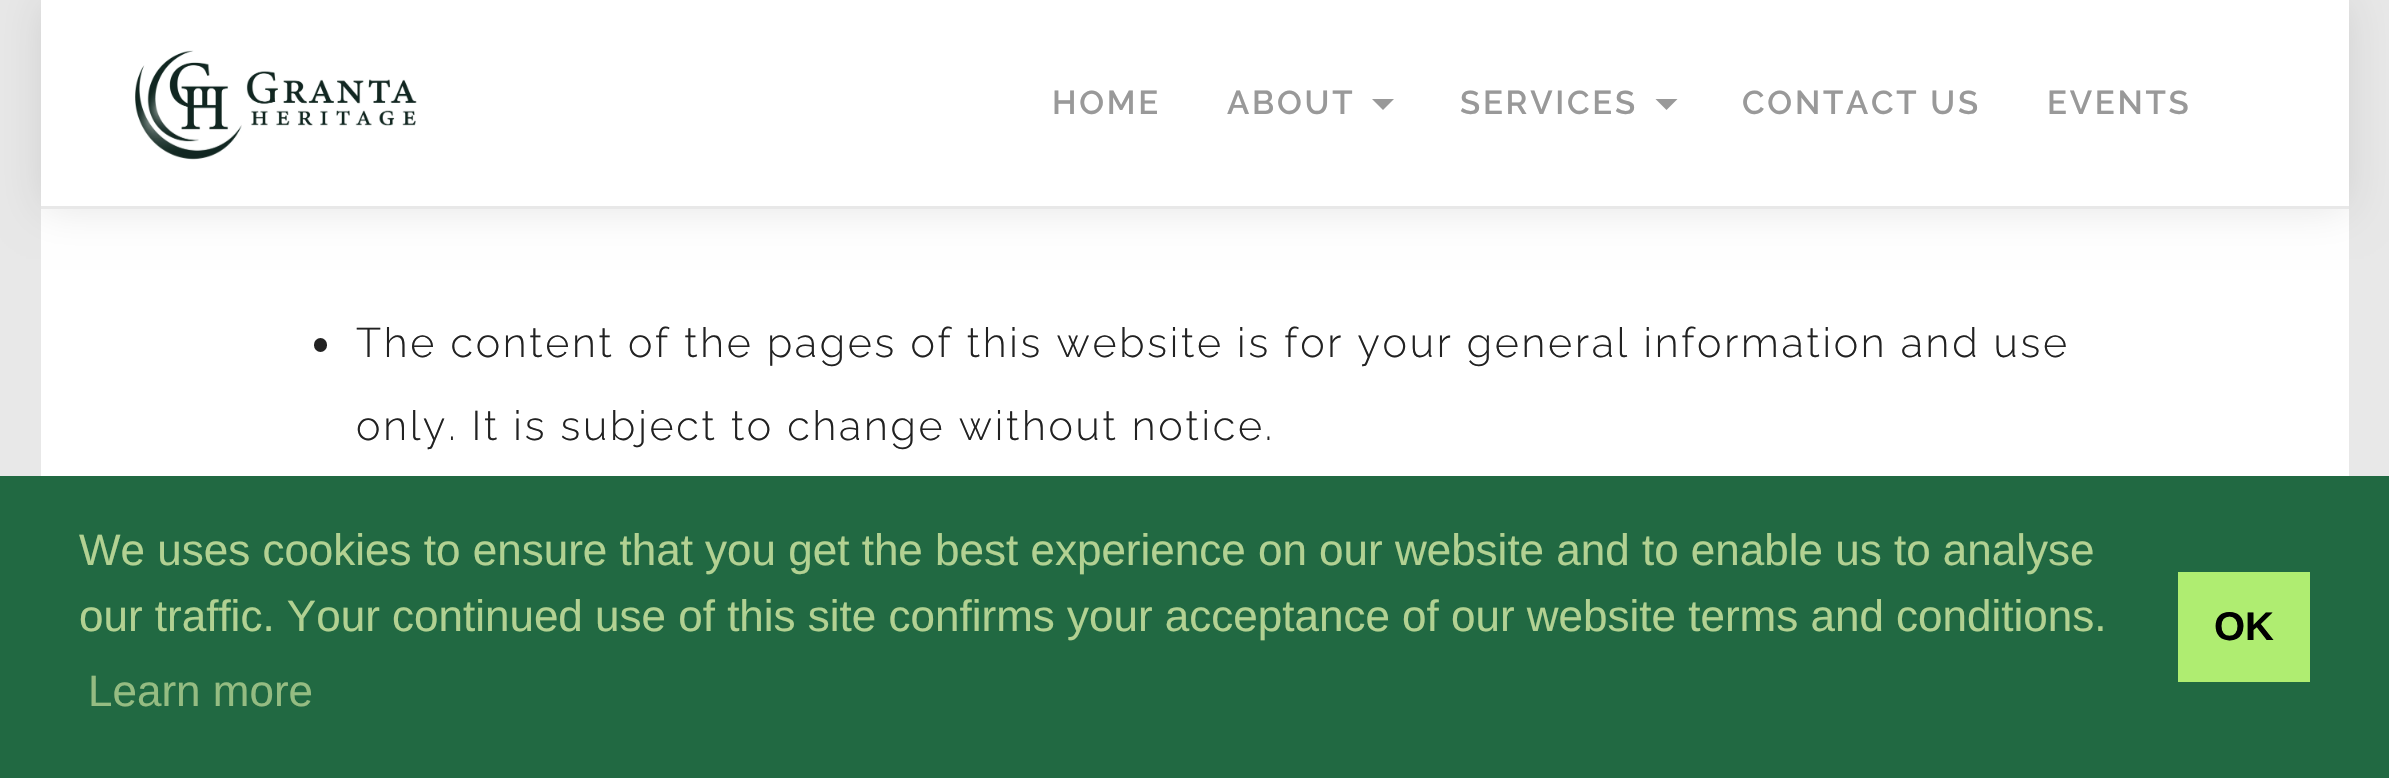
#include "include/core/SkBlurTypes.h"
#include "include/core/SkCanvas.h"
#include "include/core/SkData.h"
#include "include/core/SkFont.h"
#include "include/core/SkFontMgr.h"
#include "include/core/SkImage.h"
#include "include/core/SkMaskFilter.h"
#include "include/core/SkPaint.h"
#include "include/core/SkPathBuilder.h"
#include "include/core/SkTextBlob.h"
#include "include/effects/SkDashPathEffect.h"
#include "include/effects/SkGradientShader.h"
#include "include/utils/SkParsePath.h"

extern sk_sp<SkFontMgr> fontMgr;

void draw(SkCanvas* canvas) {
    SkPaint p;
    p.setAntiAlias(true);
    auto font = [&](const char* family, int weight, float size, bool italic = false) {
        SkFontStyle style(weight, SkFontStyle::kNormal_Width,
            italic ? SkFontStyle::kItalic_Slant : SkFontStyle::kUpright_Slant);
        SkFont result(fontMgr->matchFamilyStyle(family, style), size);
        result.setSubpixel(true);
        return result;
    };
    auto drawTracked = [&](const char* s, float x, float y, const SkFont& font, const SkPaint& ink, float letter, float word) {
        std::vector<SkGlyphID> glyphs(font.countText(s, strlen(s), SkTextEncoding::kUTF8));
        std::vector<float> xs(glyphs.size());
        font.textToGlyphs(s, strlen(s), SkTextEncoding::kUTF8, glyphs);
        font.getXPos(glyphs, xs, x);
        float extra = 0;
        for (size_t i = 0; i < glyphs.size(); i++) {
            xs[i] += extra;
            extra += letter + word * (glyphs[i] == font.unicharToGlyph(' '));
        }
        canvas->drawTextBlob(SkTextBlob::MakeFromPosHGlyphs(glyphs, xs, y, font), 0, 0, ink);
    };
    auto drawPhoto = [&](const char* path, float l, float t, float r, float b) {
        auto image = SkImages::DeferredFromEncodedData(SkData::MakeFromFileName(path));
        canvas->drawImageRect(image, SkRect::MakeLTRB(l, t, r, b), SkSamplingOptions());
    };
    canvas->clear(0xFFE8E8E8);
    p.setColor(0xFFFFFFFF);
    canvas->drawRect(SkRect::MakeLTRB(41, 209, 2349, 476), p);
    p.setColor(0x1A000000);
    p.setMaskFilter(SkMaskFilter::MakeBlur(kNormal_SkBlurStyle, 20.5f));
    canvas->drawRect(SkRect::MakeLTRB(41, 0, 2349, 209), p);
    p.setMaskFilter(nullptr);
    p.setColor(0xFFFFFFFF);
    canvas->drawRect(SkRect::MakeLTRB(41, 0, 2349, 206), p);
    p.setColor(0xFFE8E8E8);
    canvas->drawRect(SkRect::MakeLTRB(41, 206, 2349, 209), p);
    drawPhoto("media/1.png", 135, 50, 417, 160);
    auto font1 = font("Raleway", 600, 33);
    p.setColor(0xFF999999);
    drawTracked("HOME", 1052, 114, font1, p, 2.75f, 0);
    drawTracked("ABOUT", 1227, 114, font1, p, 2.75f, 0);
    canvas->drawPath(SkPathBuilder().moveTo(1372, 99).lineTo(1394, 99).lineTo(1383, 110).close().detach(), p);
    drawTracked("SERVICES", 1460, 114, font1, p, 2.75f, 0);
    canvas->drawPath(SkPathBuilder().moveTo(1655.5f, 99).lineTo(1677.5f, 99).lineTo(1666.5f, 110).close().detach(), p);
    drawTracked("CONTACT US", 1742, 114, font1, p, 2.75f, 0);
    drawTracked("EVENTS", 2047, 114, font1, p, 2.75f, 0);
    p.setColor(0xFF222222);
    canvas->drawRoundRect(SkRect::MakeLTRB(314, 338, 327, 352), 6.5f, 6.5f, p);
    auto font2 = font("Raleway", 300, 41.25f);
    drawTracked("The content of the pages of this website is for your general information and use", 356, 357, font2, p, 2.75f, 0);
    drawTracked("only. It is subject to change without notice.", 356, 440, font2, p, 2.75f, 0);
    p.setColor(0xFF216942);
    canvas->drawRect(SkRect::MakeLTRB(0, 476, 2389, 778), p);
    auto font3 = font("Liberation Sans", 400, 44);
    p.setColor(0xFFB2D192);
    canvas->drawString("We uses cookies to ensure that you get the best experience on our website and to enable us to analyse", 79, 565, font3, p);
    canvas->drawString("our traffic. Your continued use of this site confirms your acceptance of our website terms and conditions.", 79, 631, font3, p);
    p.setColor(0xFF95BC82);
    canvas->drawString("Learn more", 88, 706, font3, p);
    p.setColor(0xFFAFED71);
    canvas->drawRect(SkRect::MakeLTRB(2178, 572, 2310, 682), p);
    auto font4 = font("Liberation Sans", 700, 40);
    p.setColor(0xFF000000);
    canvas->drawString("OK", 2214, 640, font4, p);
}
